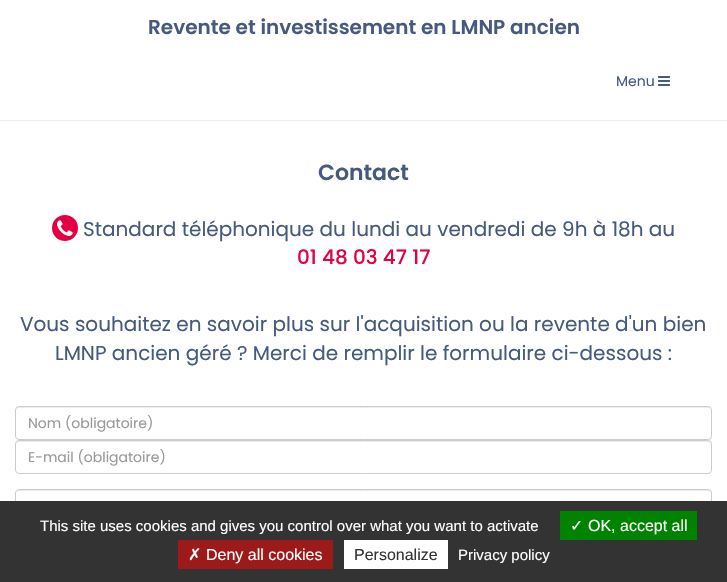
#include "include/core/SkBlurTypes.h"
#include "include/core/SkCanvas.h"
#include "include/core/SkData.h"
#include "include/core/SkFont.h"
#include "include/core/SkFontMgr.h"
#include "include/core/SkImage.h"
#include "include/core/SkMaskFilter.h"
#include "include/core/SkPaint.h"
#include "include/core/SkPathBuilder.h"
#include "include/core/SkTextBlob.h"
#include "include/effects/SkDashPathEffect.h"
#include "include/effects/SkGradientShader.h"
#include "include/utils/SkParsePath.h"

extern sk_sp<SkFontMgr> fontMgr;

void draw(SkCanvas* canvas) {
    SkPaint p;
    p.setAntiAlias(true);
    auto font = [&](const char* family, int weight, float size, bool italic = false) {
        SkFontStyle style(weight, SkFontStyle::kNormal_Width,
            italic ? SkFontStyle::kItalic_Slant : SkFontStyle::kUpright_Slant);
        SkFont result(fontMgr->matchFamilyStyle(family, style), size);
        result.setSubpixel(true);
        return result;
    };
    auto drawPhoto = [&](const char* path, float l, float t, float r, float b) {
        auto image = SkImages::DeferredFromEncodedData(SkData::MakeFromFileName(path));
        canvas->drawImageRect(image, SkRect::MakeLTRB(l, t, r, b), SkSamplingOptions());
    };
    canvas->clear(0xFFFFFFFF);
    p.setColor(0xFFECECEC);
    canvas->drawRect(SkRect::MakeLTRB(0, 120, 727, 121), p);
    auto font1 = font("Poppins", 600, 20);
    p.setColor(0xFF455A7C);
    canvas->drawString("Revente et investissement en LMNP ancien", 148, 34, font1, p);
    auto font2 = font("Poppins", 400, 14);
    canvas->drawString("Menu", 616, 86, font2, p);
    drawPhoto("media/1.png", 658, 76, 670, 86);
    auto font3 = font("Poppins", 600, 22);
    canvas->drawString("Contact", 318, 180, font3, p);
    p.setColor(0xFFE50044);
    canvas->drawCircle(65, 228, 13, p);
    drawPhoto("media/2.png", 57, 220, 73, 236);
    auto font4 = font("Poppins", 400, 20);
    p.setColor(0xFF455A7C);
    canvas->drawString("Standard téléphonique du lundi au vendredi de 9h à 18h au", 83, 236, font4, p);
    auto font5 = font("Poppins", 500, 20);
    p.setColor(0xFFE50044);
    canvas->drawString("01 48 03 47 17", 297, 264, font5, p);
    p.setColor(0xFF455A7C);
    canvas->drawString("Vous souhaitez en savoir plus sur l'acquisition ou la revente d'un bien", 20, 331, font4, p);
    canvas->drawString("LMNP ancien géré ? Merci de remplir le formulaire ci-dessous :", 55, 360, font4, p);
    p.setColor(0xFFECECEC);
    canvas->drawPath(SkPathBuilder().moveTo(19, 408).lineTo(708, 408).cubicTo(710, 408, 711, 409, 711, 411).cubicTo(711, 409, 710, 407, 708, 407).lineTo(19, 407).cubicTo(17, 407, 16, 409, 16, 411).cubicTo(16, 409, 17, 408, 19, 408).close().detach(), p);
    p.setStyle(SkPaint::kStroke_Style);
    p.setStrokeWidth(1);
    p.setColor(0xFFCCCCCC);
    canvas->drawRoundRect(SkRect::MakeLTRB(15.5f, 406.5f, 711.5f, 439.5f), 3.5f, 3.5f, p);
    p.setStyle(SkPaint::kFill_Style);
    p.setColor(0xFF999999);
    canvas->drawString("Nom (obligatoire)", 28, 428, font2, p);
    p.setColor(0xFFECECEC);
    canvas->drawPath(SkPathBuilder().moveTo(19, 442).lineTo(708, 442).cubicTo(710, 442, 711, 443, 711, 445).cubicTo(711, 443, 710, 441, 708, 441).lineTo(19, 441).cubicTo(17, 441, 16, 443, 16, 445).cubicTo(16, 443, 17, 442, 19, 442).close().detach(), p);
    p.setStyle(SkPaint::kStroke_Style);
    p.setColor(0xFFCCCCCC);
    canvas->drawRoundRect(SkRect::MakeLTRB(15.5f, 440.5f, 711.5f, 473.5f), 3.5f, 3.5f, p);
    p.setStyle(SkPaint::kFill_Style);
    p.setColor(0xFF999999);
    canvas->drawString("E-mail (obligatoire)", 28, 462, font2, p);
    p.setColor(0xFFECECEC);
    canvas->drawPath(SkPathBuilder().moveTo(19, 491).lineTo(708, 491).cubicTo(710, 491, 711, 492, 711, 494).cubicTo(711, 492, 710, 490, 708, 490).lineTo(19, 490).cubicTo(17, 490, 16, 492, 16, 494).cubicTo(16, 492, 17, 491, 19, 491).close().detach(), p);
    p.setStyle(SkPaint::kStroke_Style);
    p.setColor(0xFFCCCCCC);
    canvas->drawRoundRect(SkRect::MakeLTRB(15.5f, 489.5f, 711.5f, 522.5f), 3.5f, 3.5f, p);
    p.setStyle(SkPaint::kFill_Style);
    p.setColor(0xFF333333);
    canvas->drawRect(SkRect::MakeLTRB(0, 501, 727, 582), p);
    auto font6 = font("Liberation Sans", 400, 15);
    p.setColor(0xFFFFFFFF);
    canvas->drawString("This site uses cookies and gives you control over what you want to activate", 40, 531, font6, p);
    p.setColor(0xFF008300);
    canvas->drawRect(SkRect::MakeLTRB(560, 511, 697, 540), p);
    auto font7 = font("DejaVu Sans", 400, 16);
    p.setColor(0xFFFFFFFF);
    canvas->drawString("✓", 570, 531, font7, p);
    auto font8 = font("Liberation Sans", 400, 16);
    canvas->drawString("OK, accept all", 588, 531, font8, p);
    p.setColor(0xFF9C1A1A);
    canvas->drawRect(SkRect::MakeLTRB(178, 540, 333, 569), p);
    p.setColor(0xFFFFFFFF);
    canvas->drawString("✗", 188, 560, font7, p);
    canvas->drawString("Deny all cookies", 206, 560, font8, p);
    canvas->drawRect(SkRect::MakeLTRB(344, 540, 448, 569), p);
    p.setColor(0xFF333333);
    canvas->drawString("Personalize", 354, 560, font8, p);
    p.setColor(0xFFFFFFFF);
    canvas->drawString("Privacy policy", 458, 560, font6, p);
}
